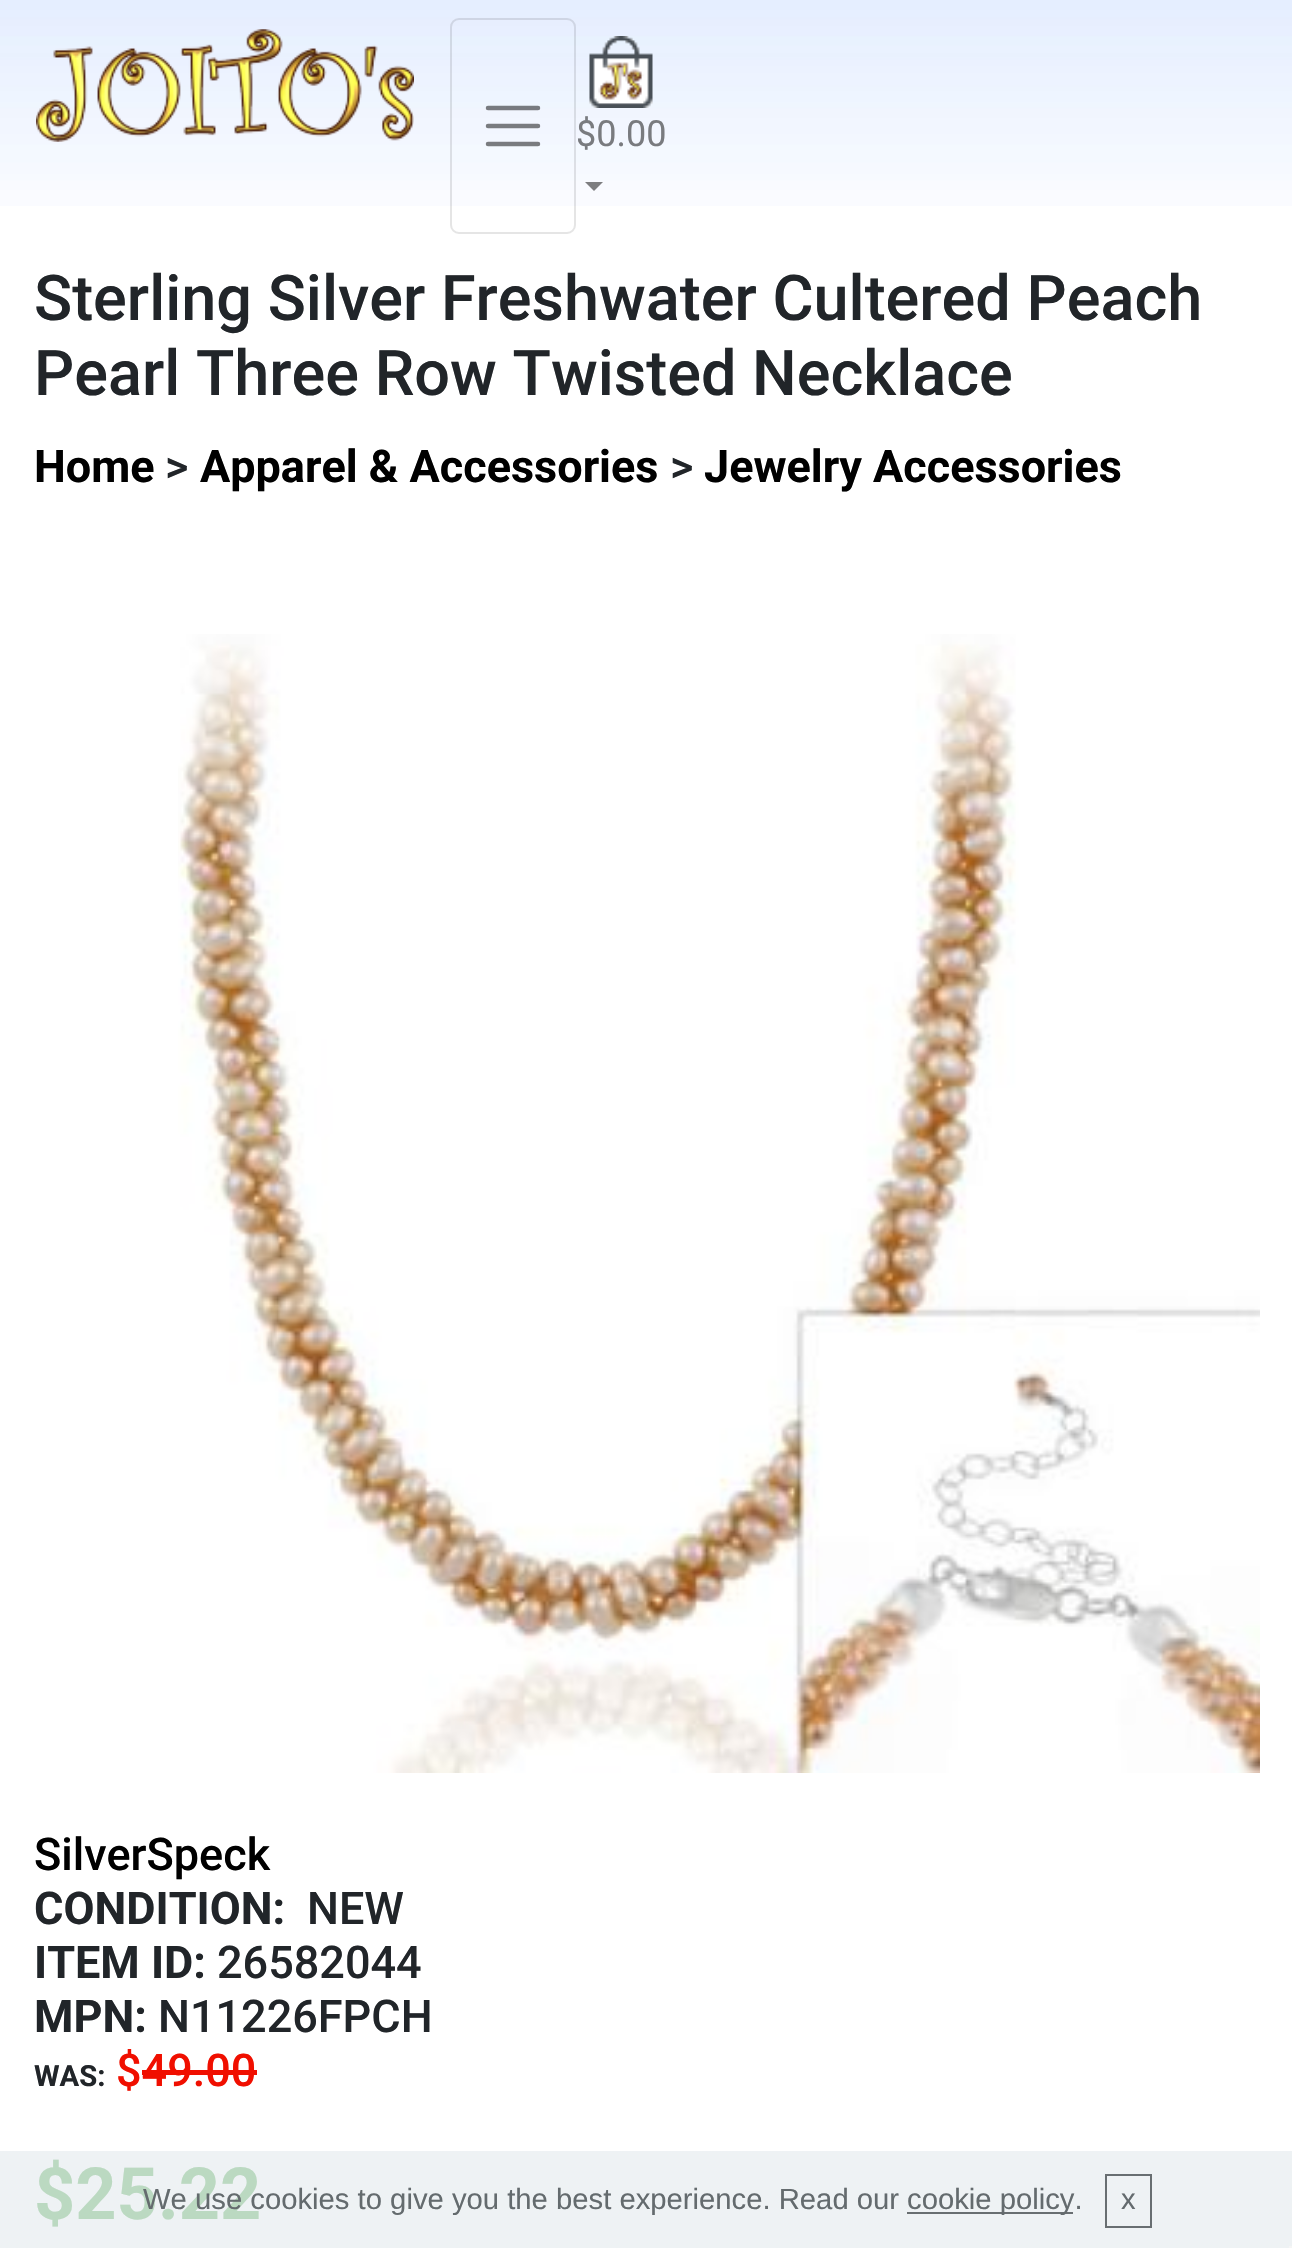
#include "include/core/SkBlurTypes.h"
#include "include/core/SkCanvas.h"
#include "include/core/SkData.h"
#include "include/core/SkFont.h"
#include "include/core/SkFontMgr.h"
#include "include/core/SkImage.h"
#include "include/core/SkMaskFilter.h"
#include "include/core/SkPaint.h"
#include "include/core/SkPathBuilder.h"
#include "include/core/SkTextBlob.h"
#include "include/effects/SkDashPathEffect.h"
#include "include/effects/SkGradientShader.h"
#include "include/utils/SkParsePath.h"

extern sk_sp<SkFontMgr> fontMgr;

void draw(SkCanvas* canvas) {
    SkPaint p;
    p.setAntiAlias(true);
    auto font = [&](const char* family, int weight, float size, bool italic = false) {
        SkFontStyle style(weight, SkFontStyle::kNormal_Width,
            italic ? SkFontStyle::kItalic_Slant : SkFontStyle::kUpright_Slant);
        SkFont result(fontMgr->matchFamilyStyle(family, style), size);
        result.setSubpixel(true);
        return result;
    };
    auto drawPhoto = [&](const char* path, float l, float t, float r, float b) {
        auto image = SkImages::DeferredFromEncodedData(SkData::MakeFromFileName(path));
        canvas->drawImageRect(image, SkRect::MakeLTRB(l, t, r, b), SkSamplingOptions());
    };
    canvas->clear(0xFFFFFFFF);
    p.setColor(0xFFEEF2F4);
    canvas->drawRect(SkRect::MakeLTRB(0, 2151, 1292, 2248), p);
    drawPhoto("media/1.png", 0, 0, 1292, 206);
    drawPhoto("media/2.png", 36, 29, 414, 142);
    p.setStyle(SkPaint::kStroke_Style);
    p.setStrokeWidth(2);
    p.setColor(0x1A000000);
    canvas->drawRoundRect(SkRect::MakeLTRB(451, 19, 575, 233), 8, 8, p);
    p.setStrokeWidth(4.5f);
    p.setStrokeCap(SkPaint::kRound_Cap);
    p.setColor(0x80000000);
    canvas->drawPath(SkPathBuilder().moveTo(488, 108).lineTo(538, 108).moveTo(488, 126).lineTo(538, 126).moveTo(488, 144).lineTo(538, 144).detach(), p);
    drawPhoto("media/3.png", 589, 36, 653, 108);
    auto font1 = font("Roboto", 400, 36);
    p.setStyle(SkPaint::kFill_Style);
    p.setColor(0xFF797B7F);
    canvas->drawString("$0.00", 576, 146, font1, p);
    p.setColor(0xFF7D7D80);
    canvas->drawPath(SkPathBuilder().moveTo(585, 182).lineTo(603, 182).lineTo(594, 191).close().detach(), p);
    auto font2 = font("Roboto", 500, 63);
    p.setColor(0xFF212529);
    canvas->drawString("Sterling Silver Freshwater Cultered Peach", 34, 320, font2, p);
    canvas->drawString("Pearl Three Row Twisted Necklace", 34, 395, font2, p);
    auto font3 = font("Roboto", 700, 45);
    p.setColor(0xFF000000);
    canvas->drawString("Home", 34, 482, font3, p);
    auto font4 = font("Roboto", 500, 45);
    p.setColor(0xFF212529);
    canvas->drawString(">", 165, 482, font4, p);
    p.setColor(0xFF000000);
    canvas->drawString("Apparel & Accessories", 200, 482, font3, p);
    p.setColor(0xFF212529);
    canvas->drawString(">", 670, 482, font4, p);
    p.setColor(0xFF000000);
    canvas->drawString("Jewelry Accessories", 704, 482, font3, p);
    drawPhoto("media/4.png", 178, 634, 1260, 1773);
    canvas->drawString("SilverSpeck", 34, 1870, font4, p);
    p.setColor(0xFF212529);
    canvas->drawString("CONDITION:", 34, 1924, font3, p);
    canvas->drawString("NEW", 307, 1924, font4, p);
    canvas->drawString("ITEM ID:", 34, 1978, font3, p);
    canvas->drawString("26582044", 217, 1978, font4, p);
    canvas->drawString("MPN:", 34, 2032, font3, p);
    canvas->drawString("N11226FPCH", 158, 2032, font4, p);
    auto font5 = font("Roboto", 700, 29.25f);
    canvas->drawString("WAS:", 34, 2086, font5, p);
    p.setColor(0xFFF00F00);
    canvas->drawString("$49.00", 116, 2086, font4, p);
    canvas->drawRect(SkRect::MakeLTRB(142, 2070, 257, 2075), p);
    auto font6 = font("Roboto", 700, 72);
    p.setColor(0xFFBBD9C1);
    canvas->drawString("$25.22", 34, 2219, font6, p);
    auto font7 = font("Liberation Sans", 400, 29.25f);
    p.setColor(0xFF646B6E);
    canvas->drawString("We use cookies to give you the best experience. Read our", 143, 2209, font7, p);
    p.setColor(0xFF686E71);
    canvas->drawRect(SkRect::MakeLTRB(907, 2212, 1073, 2214), p);
    p.setColor(0xFF646B6E);
    canvas->drawString("cookie policy.", 907, 2209, font7, p);
    p.setStyle(SkPaint::kStroke_Style);
    p.setStrokeWidth(2);
    p.setStrokeCap(SkPaint::kButt_Cap);
    p.setColor(0xFF686E71);
    canvas->drawRect(SkRect::MakeLTRB(1106, 2175, 1151, 2227), p);
    p.setStyle(SkPaint::kFill_Style);
    p.setColor(0xFF646B6E);
    canvas->drawString("x", 1121, 2209, font7, p);
    p.setColor(0xFFF5F5F5);
    canvas->drawRect(SkRect::MakeLTRB(1289, 2246, 1292, 2248), p);
}
